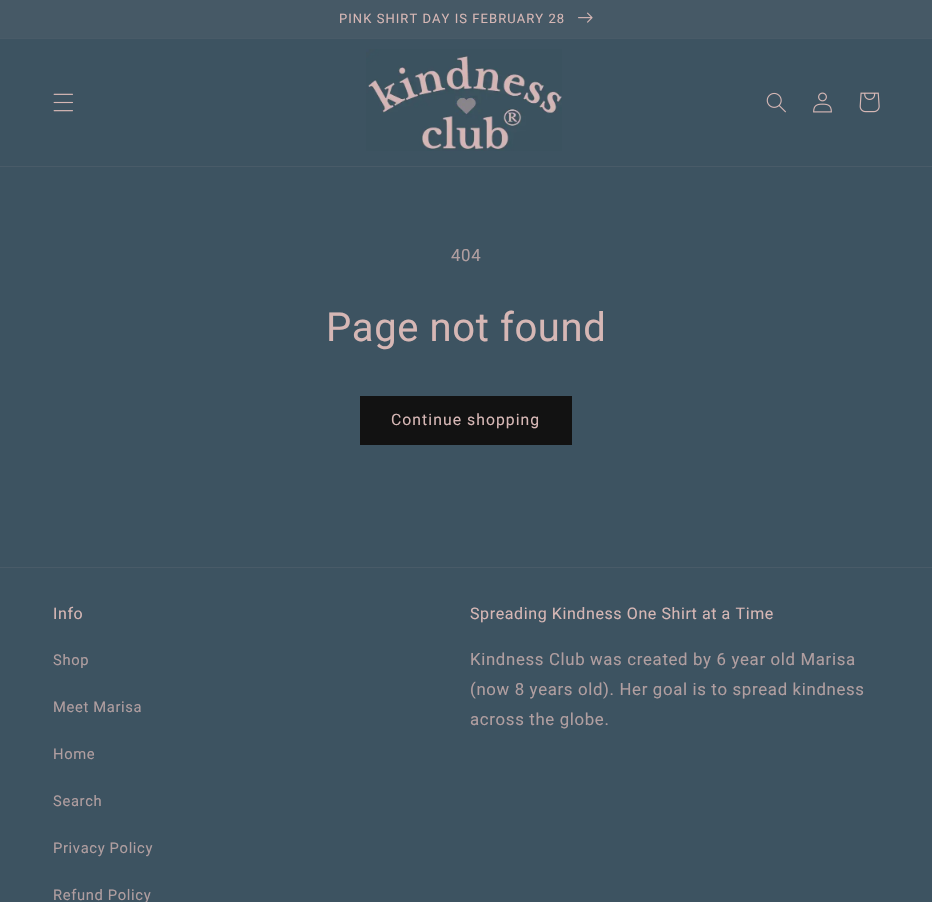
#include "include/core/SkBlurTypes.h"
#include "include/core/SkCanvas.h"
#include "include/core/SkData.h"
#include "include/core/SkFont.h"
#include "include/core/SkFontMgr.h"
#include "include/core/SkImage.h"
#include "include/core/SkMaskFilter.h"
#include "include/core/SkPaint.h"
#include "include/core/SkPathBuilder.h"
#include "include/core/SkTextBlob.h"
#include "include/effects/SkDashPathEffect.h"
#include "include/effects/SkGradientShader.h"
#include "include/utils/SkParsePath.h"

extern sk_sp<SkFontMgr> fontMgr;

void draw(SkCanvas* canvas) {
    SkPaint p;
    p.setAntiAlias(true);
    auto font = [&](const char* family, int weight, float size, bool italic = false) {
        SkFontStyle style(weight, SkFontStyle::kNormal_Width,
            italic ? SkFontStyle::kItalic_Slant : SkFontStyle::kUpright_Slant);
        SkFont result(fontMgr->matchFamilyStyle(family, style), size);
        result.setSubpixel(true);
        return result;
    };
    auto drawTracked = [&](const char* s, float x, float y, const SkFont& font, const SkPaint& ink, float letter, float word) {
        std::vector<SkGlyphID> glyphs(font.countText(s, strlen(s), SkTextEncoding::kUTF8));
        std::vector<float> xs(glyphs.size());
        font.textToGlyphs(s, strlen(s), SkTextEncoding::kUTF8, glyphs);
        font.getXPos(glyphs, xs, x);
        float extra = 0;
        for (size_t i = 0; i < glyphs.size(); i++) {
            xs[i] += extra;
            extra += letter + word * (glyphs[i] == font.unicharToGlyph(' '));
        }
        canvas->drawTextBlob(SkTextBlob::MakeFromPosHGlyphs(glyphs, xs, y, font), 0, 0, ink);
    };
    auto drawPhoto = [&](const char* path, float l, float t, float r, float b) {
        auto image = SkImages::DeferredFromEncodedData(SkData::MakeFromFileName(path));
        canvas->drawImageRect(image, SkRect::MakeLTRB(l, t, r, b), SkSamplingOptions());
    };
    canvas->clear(0xFF3D5361);
    p.setColor(0xFF495B68);
    canvas->drawRect(SkRect::MakeLTRB(0, 38, 932, 39), p);
    p.setColor(0xFF465966);
    canvas->drawRect(SkRect::MakeLTRB(0, 0, 932, 38), p);
    auto font1 = font("Roboto", 400, 13);
    p.setColor(0xFFD6B7B5);
    drawTracked("PINK SHIRT DAY IS FEBRUARY 28", 339, 23, font1, p, 1.05f, 0);
    drawPhoto("media/1.png", 578, 12, 593, 23);
    p.setColor(0xFF495B68);
    canvas->drawRect(SkRect::MakeLTRB(0, 166, 932, 167), p);
    drawPhoto("media/2.png", 53, 93, 73, 112);
    drawPhoto("media/3.png", 366, 49, 562, 151);
    drawPhoto("media/4.png", 766, 92, 786, 113);
    drawPhoto("media/5.png", 813, 92, 832, 113);
    drawPhoto("media/6.png", 859, 92, 880, 113);
    auto font2 = font("Roboto", 400, 16.8f);
    p.setColor(0xFFB09EA0);
    drawTracked("404", 451, 261, font2, p, 0.65f, 0);
    auto font3 = font("Roboto", 400, 40);
    p.setColor(0xFFD6B7B5);
    drawTracked("Page not found", 326, 341, font3, p, 0.6f, 0);
    p.setColor(0xFF121212);
    canvas->drawRect(SkRect::MakeLTRB(360, 396, 572, 445), p);
    auto font4 = font("Roboto", 400, 15.75f);
    p.setColor(0xFFD6B7B5);
    drawTracked("Continue shopping", 391, 425, font4, p, 1.05f, 0);
    p.setColor(0xFF495B68);
    canvas->drawRect(SkRect::MakeLTRB(0, 567, 932, 568), p);
    auto font5 = font("Roboto", 400, 16);
    p.setColor(0xFFD6B7B5);
    drawTracked("Info", 53, 619, font5, p, 0.6f, 0);
    auto font6 = font("Roboto", 400, 14.75f);
    p.setColor(0xFFB09EA0);
    {
        const struct { const char* s; float x, y; } items[] = {
            {"Shop", 53, 665},
            {"Meet Marisa", 53, 712},
            {"Home", 53, 759},
            {"Search", 53, 806},
            {"Privacy Policy", 53, 853},
            {"Refund Policy", 53, 900},
        };
        for (auto [s, x, y] : items) {
            drawTracked(s, x, y, font6, p, 0.65f, 0);
        }
    }
    p.setColor(0xFFD6B7B5);
    drawTracked("Spreading Kindness One Shirt at a Time", 470, 619, font5, p, 0.6f, 0);
    p.setColor(0xFFB09EA0);
    {
        const struct { const char* s; float x, y; } items[] = {
            {"Kindness Club was created by 6 year old Marisa", 470, 665},
            {"(now 8 years old). Her goal is to spread kindness", 470, 695},
            {"across the globe.", 470, 725},
        };
        for (auto [s, x, y] : items) {
            drawTracked(s, x, y, font2, p, 0.65f, 0);
        }
    }
}
